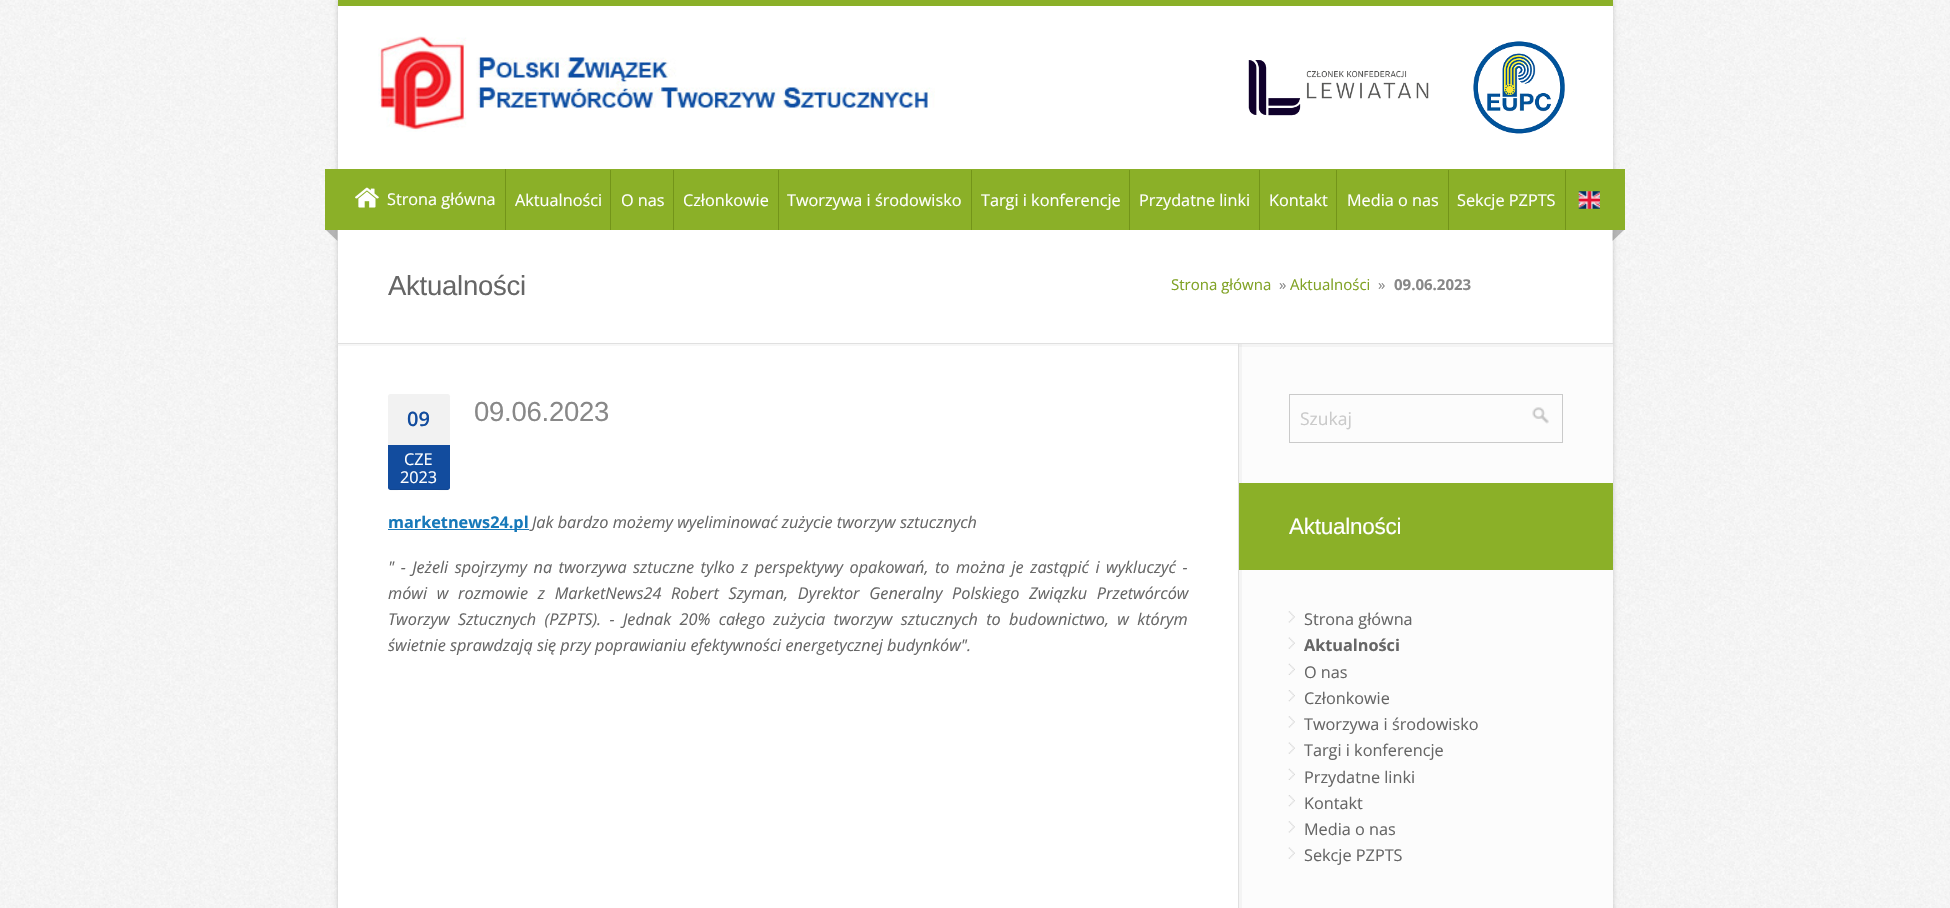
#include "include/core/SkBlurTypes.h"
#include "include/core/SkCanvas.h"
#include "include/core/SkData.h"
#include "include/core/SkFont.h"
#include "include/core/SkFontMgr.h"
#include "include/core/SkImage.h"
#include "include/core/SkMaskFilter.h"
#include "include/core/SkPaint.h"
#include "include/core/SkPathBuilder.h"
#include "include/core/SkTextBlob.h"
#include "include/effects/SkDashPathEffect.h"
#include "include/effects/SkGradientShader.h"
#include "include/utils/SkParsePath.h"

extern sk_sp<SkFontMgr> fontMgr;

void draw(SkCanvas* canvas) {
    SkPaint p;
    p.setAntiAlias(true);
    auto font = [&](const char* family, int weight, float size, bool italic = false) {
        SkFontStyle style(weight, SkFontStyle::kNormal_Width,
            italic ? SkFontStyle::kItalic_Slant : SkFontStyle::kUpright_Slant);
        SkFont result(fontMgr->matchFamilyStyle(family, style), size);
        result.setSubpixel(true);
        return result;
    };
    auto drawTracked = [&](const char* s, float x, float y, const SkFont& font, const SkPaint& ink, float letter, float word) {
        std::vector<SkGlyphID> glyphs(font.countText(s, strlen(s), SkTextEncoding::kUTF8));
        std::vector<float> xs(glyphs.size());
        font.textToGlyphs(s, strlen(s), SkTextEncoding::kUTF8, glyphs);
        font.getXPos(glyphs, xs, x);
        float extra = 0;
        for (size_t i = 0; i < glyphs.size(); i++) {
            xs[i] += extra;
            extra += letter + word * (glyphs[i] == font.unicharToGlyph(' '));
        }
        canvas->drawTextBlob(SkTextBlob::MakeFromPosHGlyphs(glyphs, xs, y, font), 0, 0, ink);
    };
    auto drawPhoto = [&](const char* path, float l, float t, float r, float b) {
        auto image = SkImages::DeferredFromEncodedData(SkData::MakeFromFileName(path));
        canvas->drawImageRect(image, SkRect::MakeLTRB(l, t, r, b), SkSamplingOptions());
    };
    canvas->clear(0xFFFFFFFF);
    drawPhoto("media/1.png", 0, 0, 1950, 908);
    p.setColor(0x33000000);
    p.setMaskFilter(SkMaskFilter::MakeBlur(kNormal_SkBlurStyle, 2.5f));
    canvas->drawRect(SkRect::MakeLTRB(338, 0, 1613, 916), p);
    p.setMaskFilter(nullptr);
    p.setColor(0xFFFFFFFF);
    canvas->drawRect(SkRect::MakeLTRB(338, 6, 1613, 908), p);
    p.setColor(0xFF8BB028);
    canvas->drawRect(SkRect::MakeLTRB(338, 0, 1613, 6), p);
    drawPhoto("media/2.png", 378, 36, 935, 132);
    drawPhoto("media/3.png", 1248, 60, 1429, 116);
    drawPhoto("media/4.png", 1473, 41, 1565, 134);
    canvas->drawRect(SkRect::MakeLTRB(325, 169, 1625, 230), p);
    p.setColor(0xFF739419);
    canvas->drawRect(SkRect::MakeLTRB(505, 169, 506, 230), p);
    drawPhoto("media/5.png", 355, 187, 379, 208);
    auto font1 = font("Open Sans", 400, 16.25f);
    p.setColor(0xFFFFFFFF);
    canvas->drawString("Strona główna", 387, 205, font1, p);
    p.setColor(0xFF739419);
    canvas->drawRect(SkRect::MakeLTRB(610, 170, 611, 230), p);
    p.setColor(0xFFFFFFFF);
    canvas->drawString("Aktualności", 515, 206, font1, p);
    p.setColor(0xFF739419);
    canvas->drawRect(SkRect::MakeLTRB(673, 170, 674, 230), p);
    p.setColor(0xFFFFFFFF);
    canvas->drawString("O nas", 621, 206, font1, p);
    p.setColor(0xFF739419);
    canvas->drawRect(SkRect::MakeLTRB(778, 170, 779, 230), p);
    p.setColor(0xFFFFFFFF);
    canvas->drawString("Członkowie", 683, 206, font1, p);
    p.setColor(0xFF739419);
    canvas->drawRect(SkRect::MakeLTRB(971, 170, 972, 230), p);
    p.setColor(0xFFFFFFFF);
    canvas->drawString("Tworzywa i środowisko", 787, 206, font1, p);
    p.setColor(0xFF739419);
    canvas->drawRect(SkRect::MakeLTRB(1129, 170, 1130, 230), p);
    p.setColor(0xFFFFFFFF);
    canvas->drawString("Targi i konferencje", 981, 206, font1, p);
    p.setColor(0xFF739419);
    canvas->drawRect(SkRect::MakeLTRB(1259, 170, 1260, 230), p);
    p.setColor(0xFFFFFFFF);
    canvas->drawString("Przydatne linki", 1139, 206, font1, p);
    p.setColor(0xFF739419);
    canvas->drawRect(SkRect::MakeLTRB(1336, 170, 1337, 230), p);
    p.setColor(0xFFFFFFFF);
    canvas->drawString("Kontakt", 1269, 206, font1, p);
    p.setColor(0xFF739419);
    canvas->drawRect(SkRect::MakeLTRB(1448, 170, 1449, 230), p);
    p.setColor(0xFFFFFFFF);
    canvas->drawString("Media o nas", 1347, 206, font1, p);
    p.setColor(0xFF739419);
    canvas->drawRect(SkRect::MakeLTRB(1565, 170, 1566, 230), p);
    p.setColor(0xFFFFFFFF);
    canvas->drawString("Sekcje PZPTS", 1457, 206, font1, p);
    drawPhoto("media/6.png", 1578, 191, 1600, 209);
    p.setColor(0x94888888);
    canvas->drawPath(SkPathBuilder().moveTo(337.5f, 230).lineTo(337.5f, 241).lineTo(326, 230).close().detach(), p);
    p.setColor(0xFFF7F7F7);
    canvas->drawPath(SkPathBuilder().moveTo(338, 344).lineTo(338, 346).lineTo(1613, 346).lineTo(1613, 233).lineTo(1612, 233).lineTo(1612, 344).close().detach(), p);
    p.setColor(0x94888888);
    canvas->drawPath(SkPathBuilder().moveTo(1612.5f, 230).lineTo(1624, 230).lineTo(1612.5f, 241).close().detach(), p);
    p.setColor(0xFFE0E0E0);
    canvas->drawRect(SkRect::MakeLTRB(338, 343, 1613, 344), p);
    auto font2 = font("Liberation Sans", 400, 27.5f);
    p.setColor(0xFF666666);
    drawTracked("Aktualności", 388, 295, font2, p, -0.25f, 0);
    auto font3 = font("Open Sans", 400, 15);
    p.setColor(0xFF80A224);
    canvas->drawString("Strona główna", 1171, 290, font3, p);
    p.setColor(0xFF888888);
    canvas->drawString("»", 1279, 290, font3, p);
    p.setColor(0xFF80A224);
    canvas->drawString("Aktualności", 1290, 290, font3, p);
    p.setColor(0xFF888888);
    canvas->drawString("»", 1378, 290, font3, p);
    auto font4 = font("Open Sans", 700, 15);
    canvas->drawString("09.06.2023", 1394, 290, font4, p);
    p.setColor(0xFFF2F2F2);
    canvas->drawPath(SkPathBuilder().moveTo(390.5f, 394).lineTo(447.5f, 394).cubicTo(449, 394, 450, 395, 450, 396.5f).lineTo(450, 445).lineTo(388, 445).lineTo(388, 396.5f).cubicTo(388, 395, 389, 394, 390.5f, 394).close().detach(), p);
    auto font5 = font("Open Sans", 600, 20);
    p.setColor(0xFF124C9E);
    canvas->drawString("09", 407, 426, font5, p);
    canvas->drawPath(SkPathBuilder().moveTo(388, 445).lineTo(450, 445).lineTo(450, 487.5f).cubicTo(450, 489, 449, 490, 447.5f, 490).lineTo(390.5f, 490).cubicTo(389, 490, 388, 489, 388, 487.5f).close().detach(), p);
    p.setColor(0x12000000);
    canvas->drawPath(SkPathBuilder().moveTo(388, 486).cubicTo(388, 492, 394, 490, 400, 490).lineTo(438, 490).cubicTo(444, 490, 450, 492, 450, 486).cubicTo(450, 488, 449, 489, 448, 489).lineTo(390, 489).cubicTo(389, 489, 388, 488, 388, 486).close().detach(), p);
    p.setColor(0xFFFFFFFF);
    canvas->drawString("CZE", 404, 465, font1, p);
    canvas->drawString("2023", 400, 483, font1, p);
    p.setColor(0xFF888888);
    drawTracked("09.06.2023", 474, 421, font2, p, -0.25f, 0);
    p.setColor(0xFF1779BA);
    canvas->drawRect(SkRect::MakeLTRB(388, 529, 529, 530), p);
    auto font6 = font("Open Sans", 700, 16.25f);
    canvas->drawString("marketnews24.pl", 388, 528, font6, p);
    auto font7 = font("Open Sans", 400, 16.25f, true);
    p.setColor(0xFF666666);
    canvas->drawString("Jak bardzo możemy wyeliminować zużycie tworzyw sztucznych", 532, 528, font7, p);
    drawTracked("\" - Jeżeli spojrzymy na tworzywa sztuczne tylko z perspektywy opakowań, to można je zastąpić i wykluczyć -", 388, 573, font7, p, 0, 2.25f);
    drawTracked("mówi w rozmowie z MarketNews24 Robert Szyman, Dyrektor Generalny Polskiego Związku Przetwórców", 388, 599, font7, p, 0, 5.5f);
    drawTracked("Tworzyw Sztucznych (PZPTS). - Jednak 20% całego zużycia tworzyw sztucznych to budownictwo, w którym", 388, 625, font7, p, 0, 4.1f);
    canvas->drawString("świetnie sprawdzają się przy poprawianiu efektywności energetycznej budynków\".", 388, 651, font7, p);
    {
        const struct { float l, t, r, b; SkColor color; } items[] = {
            {1239, 347, 1613, 908, 0xFFFCFCFC},
            {1239, 344, 1613, 347, 0xFFF4F4F4},
            {1239, 344, 1242, 908, 0x08000000},
            {1238, 344, 1239, 908, 0xFFE0E0E0},
        };
        for (auto [l, t, r, b, color] : items) {
            p.setColor(color);
            canvas->drawRect(SkRect::MakeLTRB(l, t, r, b), p);
        }
    }
    p.setStyle(SkPaint::kStroke_Style);
    p.setStrokeWidth(1);
    p.setColor(0xFFCACACA);
    canvas->drawRect(SkRect::MakeLTRB(1289.5f, 394.5f, 1562.5f, 442.5f), p);
    auto font8 = font("Open Sans", 400, 17.5f);
    p.setStyle(SkPaint::kFill_Style);
    canvas->drawString("Szukaj", 1300, 425, font8, p);
    drawPhoto("media/7.png", 1532, 407, 1549, 424);
    p.setColor(0xFF8BB028);
    canvas->drawRect(SkRect::MakeLTRB(1239, 483, 1613, 570), p);
    auto font9 = font("Liberation Sans", 400, 22.5f);
    p.setColor(0xFFFFFFFF);
    drawTracked("Aktualności", 1289, 534, font9, p, -0.25f, 0);
    drawPhoto("media/8.png", 1288, 611, 1295, 623);
    p.setColor(0xFF666666);
    canvas->drawString("Strona główna", 1304, 625, font1, p);
    drawPhoto("media/9.png", 1288, 637, 1295, 649);
    canvas->drawString("Aktualności", 1304, 651, font6, p);
    drawPhoto("media/10.png", 1288, 663, 1295, 675);
    canvas->drawString("O nas", 1304, 678, font1, p);
    drawPhoto("media/11.png", 1288, 690, 1295, 702);
    canvas->drawString("Członkowie", 1304, 704, font1, p);
    drawPhoto("media/8.png", 1288, 716, 1295, 728);
    canvas->drawString("Tworzywa i środowisko", 1304, 730, font1, p);
    drawPhoto("media/9.png", 1288, 742, 1295, 754);
    canvas->drawString("Targi i konferencje", 1304, 756, font1, p);
    drawPhoto("media/10.png", 1288, 768, 1295, 780);
    canvas->drawString("Przydatne linki", 1304, 783, font1, p);
    drawPhoto("media/11.png", 1288, 795, 1295, 807);
    canvas->drawString("Kontakt", 1304, 809, font1, p);
    drawPhoto("media/8.png", 1288, 821, 1295, 833);
    canvas->drawString("Media o nas", 1304, 835, font1, p);
    drawPhoto("media/9.png", 1288, 847, 1295, 859);
    canvas->drawString("Sekcje PZPTS", 1304, 861, font1, p);
}
